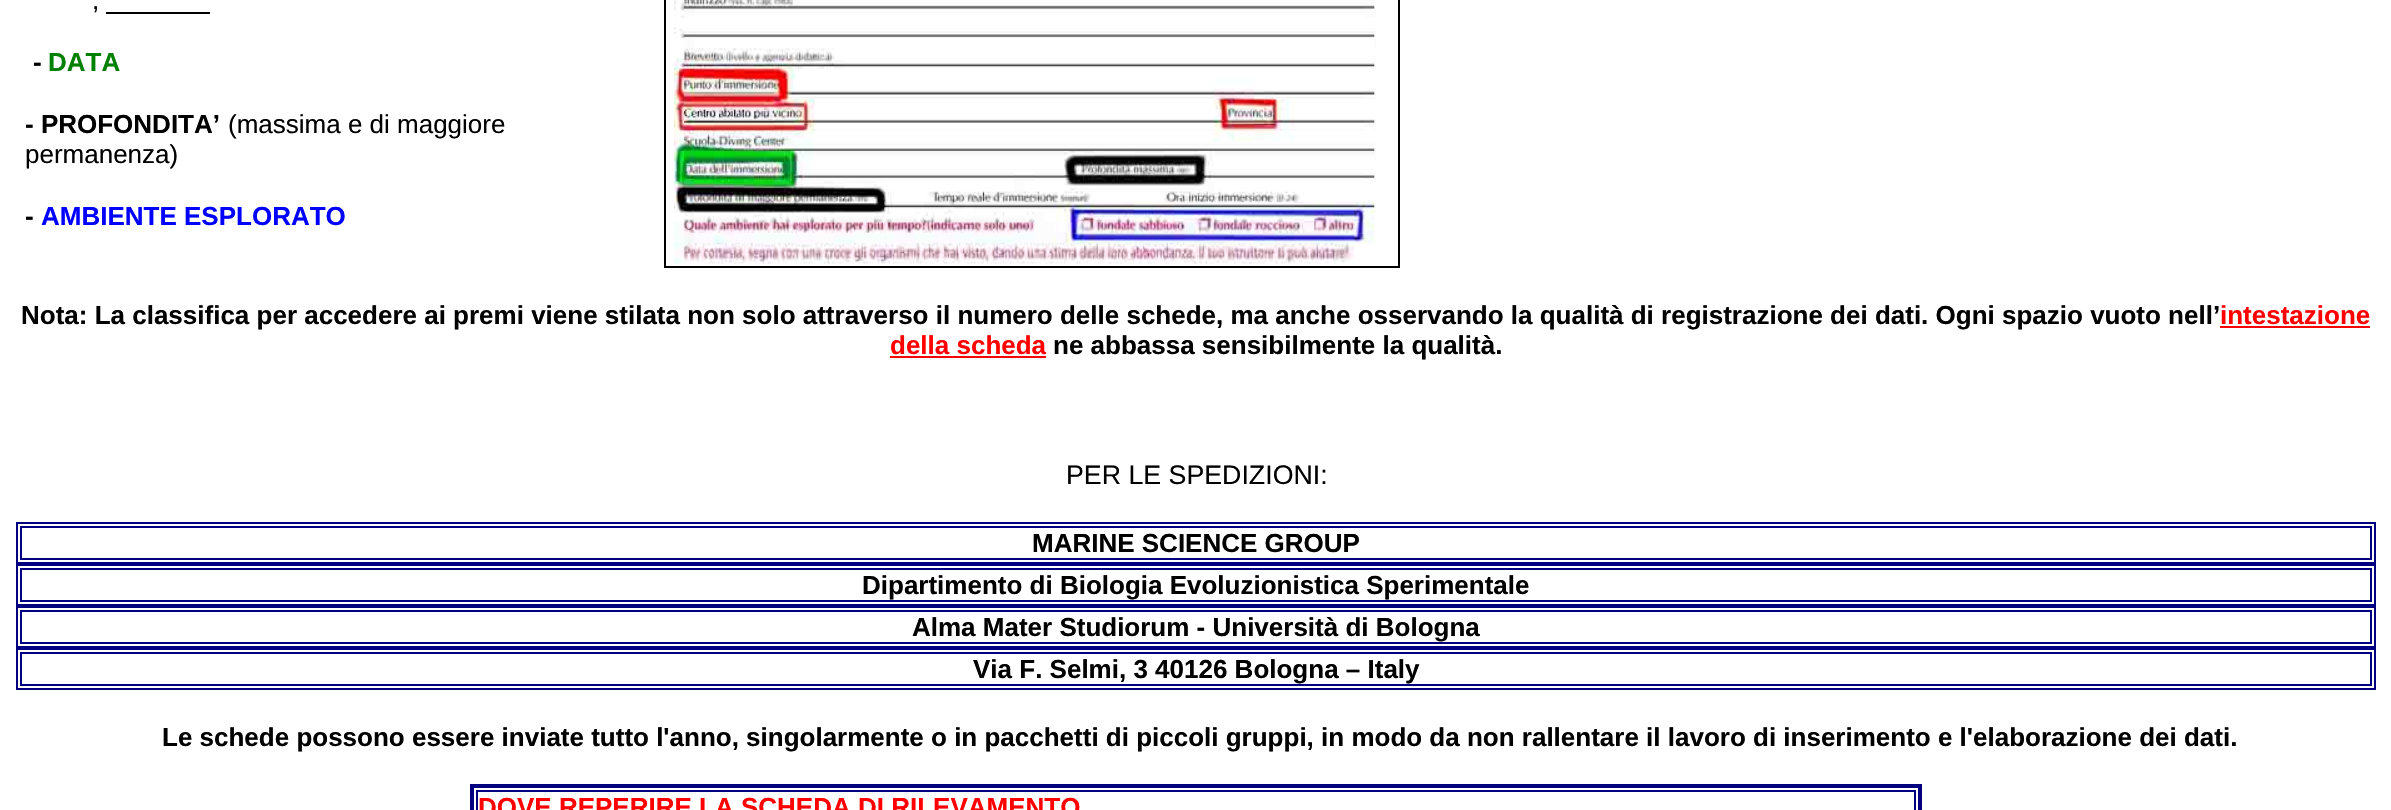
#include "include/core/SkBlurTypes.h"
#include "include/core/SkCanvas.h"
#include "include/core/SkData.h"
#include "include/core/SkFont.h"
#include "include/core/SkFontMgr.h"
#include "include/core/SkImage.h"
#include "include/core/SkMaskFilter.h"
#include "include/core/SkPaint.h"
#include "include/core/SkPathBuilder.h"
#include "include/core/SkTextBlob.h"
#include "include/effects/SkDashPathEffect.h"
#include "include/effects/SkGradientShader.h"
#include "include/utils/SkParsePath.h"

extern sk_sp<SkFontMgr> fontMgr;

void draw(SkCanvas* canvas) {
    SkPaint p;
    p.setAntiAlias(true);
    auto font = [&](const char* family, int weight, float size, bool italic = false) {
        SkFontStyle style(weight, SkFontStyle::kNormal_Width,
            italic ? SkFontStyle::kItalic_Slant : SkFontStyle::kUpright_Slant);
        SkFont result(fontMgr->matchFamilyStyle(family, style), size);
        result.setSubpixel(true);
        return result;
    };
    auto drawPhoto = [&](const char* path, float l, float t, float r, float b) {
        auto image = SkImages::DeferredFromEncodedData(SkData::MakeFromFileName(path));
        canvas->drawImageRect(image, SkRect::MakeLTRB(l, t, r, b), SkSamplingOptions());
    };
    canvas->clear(0xFFFFFFFF);
    {
        const struct { float l, t, r, b; SkColor color; } items[] = {
            {1398, 0, 1400, 268, 0xFF000000},
            {664, 266, 1400, 268, 0xFF000000},
            {664, 0, 666, 268, 0xFF000000},
        };
        for (auto [l, t, r, b, color] : items) {
            p.setColor(color);
            canvas->drawRect(SkRect::MakeLTRB(l, t, r, b), p);
        }
    }
    auto font1 = font("Liberation Sans", 400, 26);
    canvas->drawString(",", 92, 9, font1, p);
    canvas->drawRect(SkRect::MakeLTRB(106, 12, 210, 14), p);
    auto font2 = font("Liberation Sans", 700, 26);
    canvas->drawString("-", 33, 71, font2, p);
    p.setColor(0xFF008000);
    canvas->drawString("DATA", 48, 71, font2, p);
    p.setColor(0xFF000000);
    canvas->drawString("- PROFONDITA’", 25, 133, font2, p);
    canvas->drawString("(massima e di maggiore", 228, 133, font1, p);
    canvas->drawString("permanenza)", 25, 163, font1, p);
    canvas->drawString("-", 25, 225, font2, p);
    p.setColor(0xFF0000FF);
    canvas->drawString("AMBIENTE ESPLORATO", 41, 225, font2, p);
    drawPhoto("media/1.png", 674, 0, 1376, 264);
    p.setColor(0xFF000000);
    canvas->drawString("Nota: La classifica per accedere ai premi viene stilata non solo attraverso il numero delle schede, ma anche osservando la qualità di registrazione dei dati. Ogni spazio vuoto nell’", 21, 324, font2, p);
    p.setColor(0xFFFF0000);
    canvas->drawRect(SkRect::MakeLTRB(2220, 326, 2370, 328), p);
    canvas->drawString("intestazione", 2220, 324, font2, p);
    canvas->drawString("della scheda", 890, 354, font2, p);
    canvas->drawRect(SkRect::MakeLTRB(890, 356, 1046, 358), p);
    p.setColor(0xFF000000);
    canvas->drawString("ne abbassa sensibilmente la qualità.", 1053, 354, font2, p);
    auto font3 = font("Liberation Sans", 400, 26.75f);
    canvas->drawString("PER LE SPEDIZIONI:", 1066, 484, font3, p);
    p.setStyle(SkPaint::kStroke_Style);
    p.setStrokeWidth(2);
    p.setColor(0xFF000080);
    canvas->drawRect(SkRect::MakeLTRB(17, 523, 2375, 563), p);
    canvas->drawRect(SkRect::MakeLTRB(21, 527, 2371, 559), p);
    p.setStyle(SkPaint::kFill_Style);
    p.setColor(0xFF000000);
    canvas->drawString("MARINE SCIENCE GROUP", 1032, 552, font2, p);
    p.setStyle(SkPaint::kStroke_Style);
    p.setColor(0xFF000080);
    canvas->drawRect(SkRect::MakeLTRB(17, 565, 2375, 605), p);
    canvas->drawRect(SkRect::MakeLTRB(21, 569, 2371, 601), p);
    p.setStyle(SkPaint::kFill_Style);
    p.setColor(0xFF000000);
    canvas->drawString("Dipartimento di Biologia Evoluzionistica Sperimentale", 862, 594, font2, p);
    p.setStyle(SkPaint::kStroke_Style);
    p.setColor(0xFF000080);
    canvas->drawRect(SkRect::MakeLTRB(17, 607, 2375, 647), p);
    canvas->drawRect(SkRect::MakeLTRB(21, 611, 2371, 643), p);
    p.setStyle(SkPaint::kFill_Style);
    p.setColor(0xFF000000);
    canvas->drawString("Alma Mater Studiorum - Università di Bologna", 912, 636, font2, p);
    p.setStyle(SkPaint::kStroke_Style);
    p.setColor(0xFF000080);
    canvas->drawRect(SkRect::MakeLTRB(17, 649, 2375, 689), p);
    canvas->drawRect(SkRect::MakeLTRB(21, 653, 2371, 685), p);
    p.setStyle(SkPaint::kFill_Style);
    p.setColor(0xFF000000);
    canvas->drawString("Via F. Selmi, 3 40126 Bologna – Italy", 973, 678, font2, p);
    canvas->drawString("Le schede possono essere inviate tutto l'anno, singolarmente o in pacchetti di piccoli gruppi, in modo da non rallentare il lavoro di inserimento e l'elaborazione dei dati.", 162, 746, font2, p);
    p.setStyle(SkPaint::kStroke_Style);
    p.setStrokeWidth(4);
    p.setColor(0xFF000080);
    canvas->drawRect(SkRect::MakeLTRB(472, 786, 1920, 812), p);
    p.setStrokeWidth(2);
    canvas->drawRect(SkRect::MakeLTRB(477, 791, 1915, 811), p);
    p.setStyle(SkPaint::kFill_Style);
    p.setColor(0xFFFF0000);
    canvas->drawString("DOVE REPERIRE LA SCHEDA DI RILEVAMENTO", 478, 816, font2, p);
}
